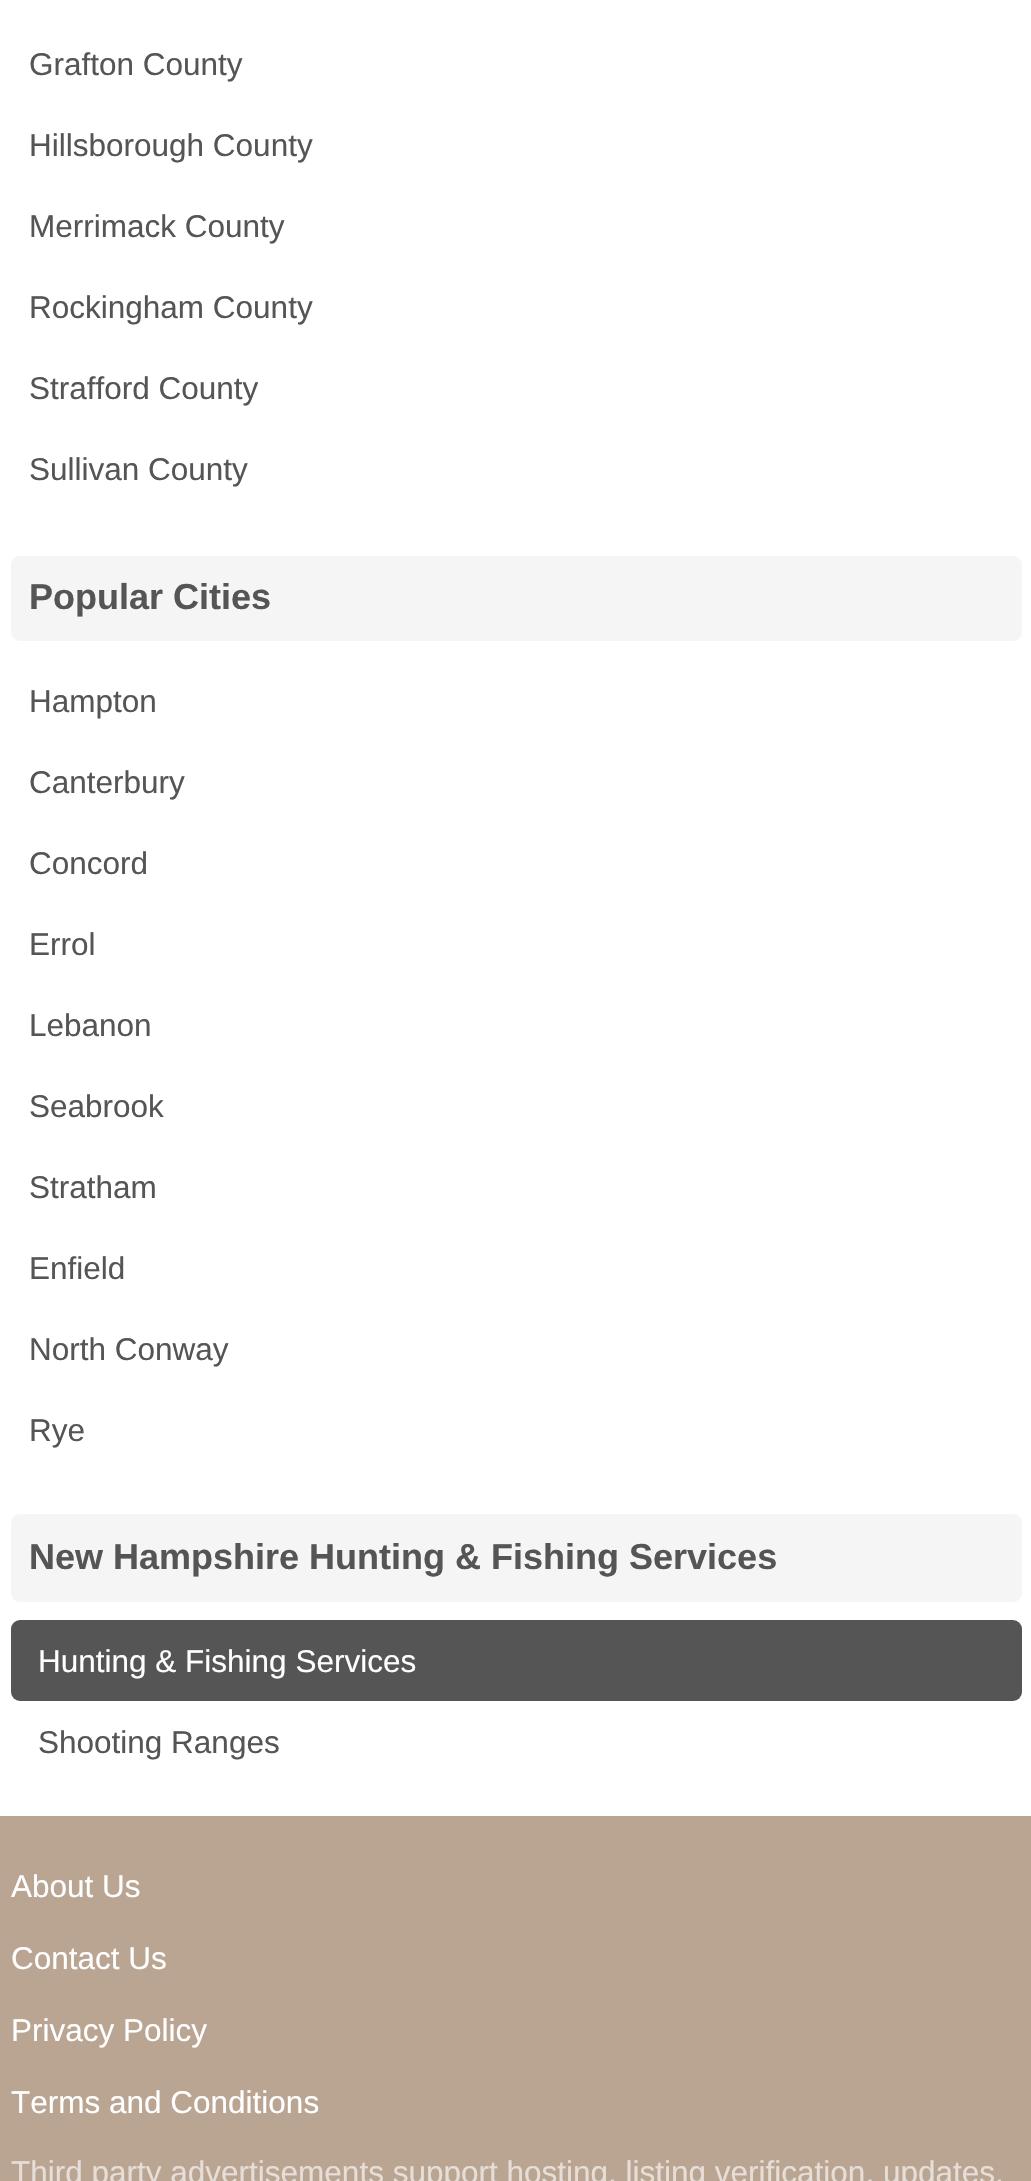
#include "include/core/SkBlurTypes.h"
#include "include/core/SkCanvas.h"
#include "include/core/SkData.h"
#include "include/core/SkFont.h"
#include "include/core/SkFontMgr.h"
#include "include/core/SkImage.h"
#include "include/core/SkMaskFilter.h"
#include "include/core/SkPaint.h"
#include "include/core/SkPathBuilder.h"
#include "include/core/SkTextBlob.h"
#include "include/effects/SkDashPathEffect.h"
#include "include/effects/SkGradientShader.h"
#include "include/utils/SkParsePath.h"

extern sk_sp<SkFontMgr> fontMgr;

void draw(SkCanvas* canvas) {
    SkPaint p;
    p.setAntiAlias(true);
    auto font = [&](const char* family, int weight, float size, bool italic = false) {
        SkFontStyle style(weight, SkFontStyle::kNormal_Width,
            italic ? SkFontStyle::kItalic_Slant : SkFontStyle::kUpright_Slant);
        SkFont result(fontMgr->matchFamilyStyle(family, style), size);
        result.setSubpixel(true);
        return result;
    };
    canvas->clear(0xFFFFFFFF);
    auto font1 = font("Liberation Sans", 400, 31.5f);
    p.setColor(0xFF555555);
    {
        const struct { const char* s; float x, y; } items[] = {
            {"Grafton County", 29, 75},
            {"Hillsborough County", 29, 156},
            {"Merrimack County", 29, 237},
            {"Rockingham County", 29, 318},
            {"Strafford County", 29, 399},
            {"Sullivan County", 29, 480},
        };
        for (auto [s, x, y] : items) {
            canvas->drawString(s, x, y, font1, p);
        }
    }
    p.setColor(0xFFF5F5F5);
    canvas->drawRoundRect(SkRect::MakeLTRB(11, 556, 1022, 641), 9, 9, p);
    auto font2 = font("Liberation Sans", 700, 36);
    p.setColor(0xFF555555);
    canvas->drawString("Popular Cities", 29, 609, font2, p);
    {
        const struct { const char* s; float x, y; } items[] = {
            {"Hampton", 29, 712},
            {"Canterbury", 29, 793},
            {"Concord", 29, 874},
            {"Errol", 29, 955},
            {"Lebanon", 29, 1036},
            {"Seabrook", 29, 1117},
            {"Stratham", 29, 1198},
            {"Enfield", 29, 1279},
            {"North Conway", 29, 1360},
            {"Rye", 29, 1441},
        };
        for (auto [s, x, y] : items) {
            canvas->drawString(s, x, y, font1, p);
        }
    }
    p.setColor(0xFFF5F5F5);
    canvas->drawRoundRect(SkRect::MakeLTRB(11, 1514, 1022, 1602), 9, 9, p);
    p.setColor(0xFF555555);
    canvas->drawString("New Hampshire Hunting & Fishing Services", 29, 1569, font2, p);
    canvas->drawRoundRect(SkRect::MakeLTRB(11, 1620, 1022, 1701), 9, 9, p);
    p.setColor(0xFFFFFFFF);
    canvas->drawString("Hunting & Fishing Services", 38, 1672, font1, p);
    p.setColor(0xFF555555);
    canvas->drawString("Shooting Ranges", 38, 1753, font1, p);
    p.setColor(0xFFBAA492);
    canvas->drawRect(SkRect::MakeLTRB(0, 1816, 1031, 2181), p);
    p.setColor(0xFFFFFFFF);
    {
        const struct { const char* s; float x, y; } items[] = {
            {"About Us", 11, 1897},
            {"Contact Us", 11, 1969},
            {"Privacy Policy", 11, 2041},
            {"Terms and Conditions", 11, 2113},
        };
        for (auto [s, x, y] : items) {
            canvas->drawString(s, x, y, font1, p);
        }
    }
    p.setColor(0xFFE6DED7);
    canvas->drawString("Third party advertisements support hosting, listing verification, updates,", 11, 2183, font1, p);
}
